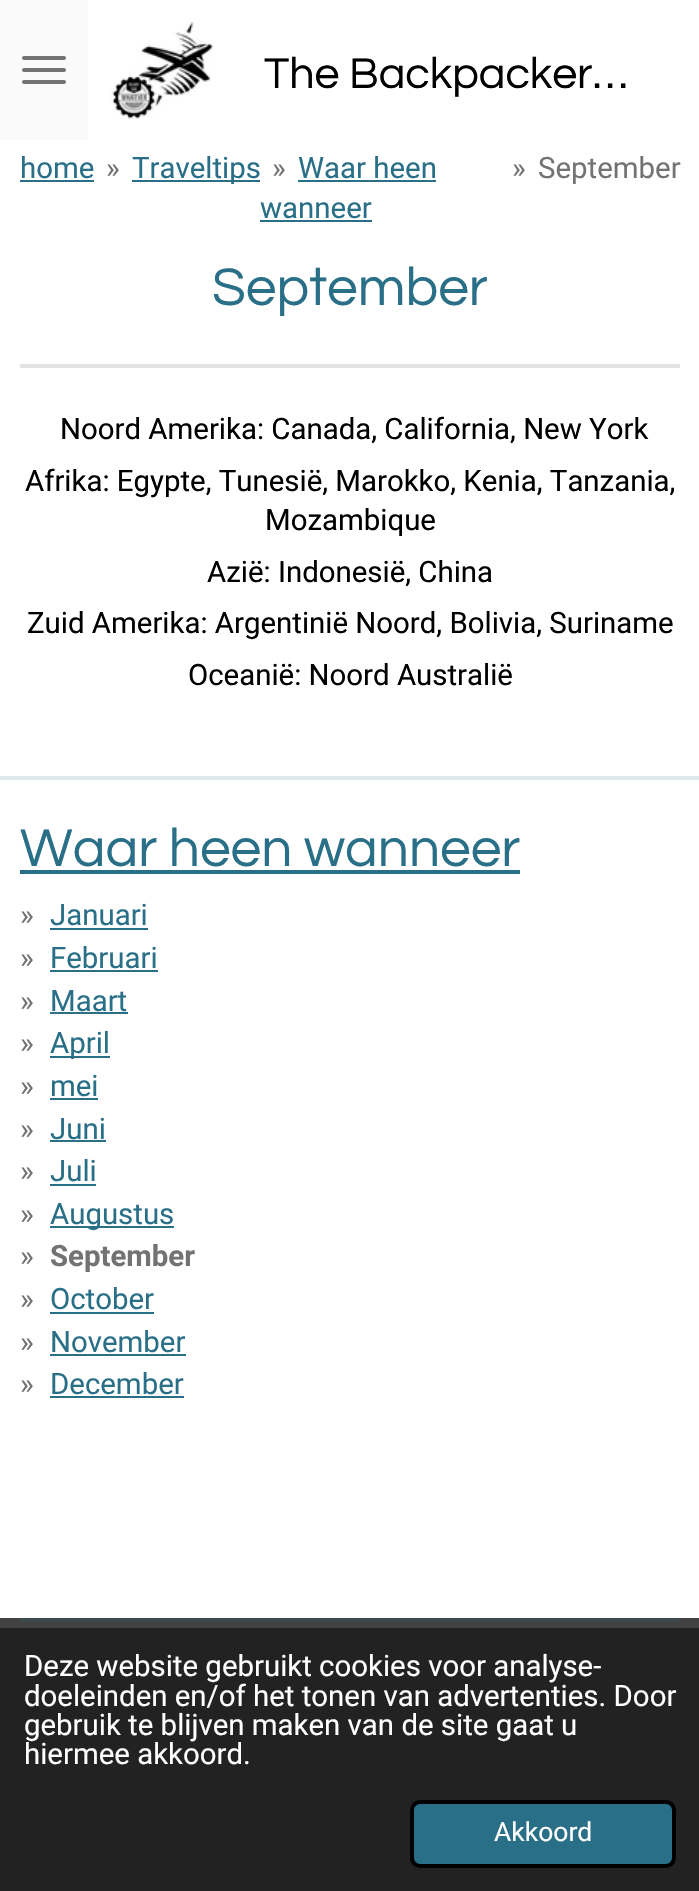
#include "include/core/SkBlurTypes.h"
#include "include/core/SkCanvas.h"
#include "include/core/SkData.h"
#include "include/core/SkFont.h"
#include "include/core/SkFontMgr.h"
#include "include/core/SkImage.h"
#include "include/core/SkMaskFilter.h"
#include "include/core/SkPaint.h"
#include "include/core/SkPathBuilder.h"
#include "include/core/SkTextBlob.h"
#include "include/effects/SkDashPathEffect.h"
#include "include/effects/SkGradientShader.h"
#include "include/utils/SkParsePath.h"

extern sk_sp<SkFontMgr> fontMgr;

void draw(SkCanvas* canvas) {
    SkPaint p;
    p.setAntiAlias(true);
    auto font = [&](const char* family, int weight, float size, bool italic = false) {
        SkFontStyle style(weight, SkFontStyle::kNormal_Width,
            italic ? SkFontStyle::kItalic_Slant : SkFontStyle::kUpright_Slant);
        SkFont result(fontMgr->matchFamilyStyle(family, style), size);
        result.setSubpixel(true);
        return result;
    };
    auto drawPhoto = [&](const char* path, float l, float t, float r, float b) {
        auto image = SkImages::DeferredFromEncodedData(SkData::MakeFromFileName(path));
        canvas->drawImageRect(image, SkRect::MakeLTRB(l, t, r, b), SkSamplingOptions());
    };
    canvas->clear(0xFFFFFFFF);
    p.setColor(0xFFFAFAFA);
    canvas->drawRect(SkRect::MakeLTRB(0, 0, 88, 140), p);
    p.setColor(0xFF737373);
    canvas->drawRoundRect(SkRect::MakeLTRB(22, 68, 66, 72), 2, 2, p);
    canvas->drawRoundRect(SkRect::MakeLTRB(22, 56, 66, 60), 2, 2, p);
    canvas->drawRoundRect(SkRect::MakeLTRB(22, 80, 66, 84), 2, 2, p);
    drawPhoto("media/1.png", 108, 21, 213, 119);
    auto font1 = font("Questrial", 400, 44.75f);
    p.setColor(0xFF000000);
    canvas->drawString("The Backpacker…", 264, 88, font1, p);
    auto font2 = font("Roboto", 400, 29.4f);
    p.setColor(0xFF296F87);
    canvas->drawString("home", 20, 178, font2, p);
    canvas->drawRect(SkRect::MakeLTRB(20, 180, 94, 182), p);
    p.setColor(0xFF737373);
    canvas->drawString("»", 106, 178, font2, p);
    p.setColor(0xFF296F87);
    canvas->drawRect(SkRect::MakeLTRB(132, 180, 260, 182), p);
    canvas->drawString("Traveltips", 132, 178, font2, p);
    p.setColor(0xFF737373);
    canvas->drawString("»", 272, 178, font2, p);
    p.setColor(0xFF296F87);
    canvas->drawString("Waar heen", 298, 178, font2, p);
    canvas->drawRect(SkRect::MakeLTRB(298, 180, 436, 182), p);
    canvas->drawString("wanneer", 260, 218, font2, p);
    canvas->drawRect(SkRect::MakeLTRB(260, 220, 372, 222), p);
    p.setColor(0xFF737373);
    canvas->drawString("»", 512, 178, font2, p);
    canvas->drawString("September", 538, 178, font2, p);
    auto font3 = font("Questrial", 400, 55);
    p.setColor(0xFF296F87);
    canvas->drawString("September", 212, 305, font3, p);
    p.setColor(0xFFE3E3E3);
    canvas->drawRect(SkRect::MakeLTRB(20, 364, 680, 368), p);
    p.setColor(0xFF000000);
    {
        const struct { const char* s; float x, y; } items[] = {
            {"Noord Amerika: Canada, California, New York", 60, 439},
            {"Afrika: Egypte, Tunesië, Marokko, Kenia, Tanzania,", 25, 491},
            {"Mozambique", 265, 530},
            {"Azië: Indonesië, China", 207, 582},
            {"Zuid Amerika: Argentinië Noord, Bolivia, Suriname", 27, 633},
            {"Oceanië: Noord Australië", 188, 685},
        };
        for (auto [s, x, y] : items) {
            canvas->drawString(s, x, y, font2, p);
        }
    }
    p.setColor(0xFFDFE9ED);
    canvas->drawRect(SkRect::MakeLTRB(0, 776, 699, 780), p);
    p.setColor(0xFF296F87);
    canvas->drawString("Waar heen wanneer", 20, 866, font3, p);
    canvas->drawRect(SkRect::MakeLTRB(20, 870, 520, 874), p);
    p.setColor(0xFF737373);
    canvas->drawString("»", 20, 925, font2, p);
    p.setColor(0xFF296F87);
    canvas->drawString("Januari", 50, 925, font2, p);
    canvas->drawRect(SkRect::MakeLTRB(50, 928, 148, 930), p);
    p.setColor(0xFF737373);
    canvas->drawString("»", 20, 968, font2, p);
    p.setColor(0xFF296F87);
    canvas->drawString("Februari", 50, 968, font2, p);
    canvas->drawRect(SkRect::MakeLTRB(50, 970, 158, 972), p);
    p.setColor(0xFF737373);
    canvas->drawString("»", 20, 1011, font2, p);
    p.setColor(0xFF296F87);
    canvas->drawString("Maart", 50, 1011, font2, p);
    canvas->drawRect(SkRect::MakeLTRB(50, 1012, 128, 1014), p);
    p.setColor(0xFF737373);
    canvas->drawString("»", 20, 1053, font2, p);
    p.setColor(0xFF296F87);
    canvas->drawRect(SkRect::MakeLTRB(50, 1056, 110, 1058), p);
    canvas->drawString("April", 50, 1053, font2, p);
    p.setColor(0xFF737373);
    canvas->drawString("»", 20, 1096, font2, p);
    p.setColor(0xFF296F87);
    canvas->drawString("mei", 50, 1096, font2, p);
    canvas->drawRect(SkRect::MakeLTRB(50, 1098, 98, 1100), p);
    p.setColor(0xFF737373);
    canvas->drawString("»", 20, 1139, font2, p);
    p.setColor(0xFF296F87);
    canvas->drawString("Juni", 50, 1139, font2, p);
    canvas->drawRect(SkRect::MakeLTRB(50, 1140, 106, 1142), p);
    p.setColor(0xFF737373);
    canvas->drawString("»", 20, 1181, font2, p);
    p.setColor(0xFF296F87);
    canvas->drawString("Juli", 50, 1181, font2, p);
    canvas->drawRect(SkRect::MakeLTRB(50, 1184, 96, 1186), p);
    p.setColor(0xFF737373);
    canvas->drawString("»", 20, 1224, font2, p);
    p.setColor(0xFF296F87);
    canvas->drawRect(SkRect::MakeLTRB(50, 1226, 174, 1228), p);
    canvas->drawString("Augustus", 50, 1224, font2, p);
    p.setColor(0xFF737373);
    canvas->drawString("»", 20, 1266, font2, p);
    auto font4 = font("Roboto", 700, 29.4f);
    canvas->drawString("September", 50, 1266, font4, p);
    canvas->drawString("»", 20, 1309, font2, p);
    p.setColor(0xFF296F87);
    canvas->drawString("October", 50, 1309, font2, p);
    canvas->drawRect(SkRect::MakeLTRB(50, 1312, 154, 1314), p);
    p.setColor(0xFF737373);
    canvas->drawString("»", 20, 1352, font2, p);
    p.setColor(0xFF296F87);
    canvas->drawString("November", 50, 1352, font2, p);
    canvas->drawRect(SkRect::MakeLTRB(50, 1354, 186, 1356), p);
    p.setColor(0xFF737373);
    canvas->drawString("»", 20, 1394, font2, p);
    p.setColor(0xFF296F87);
    canvas->drawString("December", 50, 1394, font2, p);
    {
        const struct { float l, t, r, b; SkColor color; } items[] = {
            {50, 1396, 184, 1398, 0xFF296F87},
            {0, 1618, 699, 1628, 0xFF424242},
            {20, 1618, 680, 1622, 0xFF3E494C},
            {0, 1628, 699, 1891, 0xFF222222},
        };
        for (auto [l, t, r, b, color] : items) {
            p.setColor(color);
            canvas->drawRect(SkRect::MakeLTRB(l, t, r, b), p);
        }
    }
    p.setColor(0xFFFFFFFF);
    {
        const struct { const char* s; float x, y; } items[] = {
            {"Deze website gebruikt cookies voor analyse-", 24, 1676},
            {"doeleinden en/of het tonen van advertenties. Door", 24, 1706},
            {"gebruik te blijven maken van de site gaat u", 24, 1735},
            {"hiermee akkoord.", 24, 1764},
        };
        for (auto [s, x, y] : items) {
            canvas->drawString(s, x, y, font2, p);
        }
    }
    p.setColor(0xFF296F87);
    canvas->drawRoundRect(SkRect::MakeLTRB(412, 1802, 674, 1866), 8, 8, p);
    p.setStyle(SkPaint::kStroke_Style);
    p.setStrokeWidth(4);
    p.setColor(0xFF000000);
    canvas->drawRoundRect(SkRect::MakeLTRB(412, 1802, 674, 1866), 8, 8, p);
    auto font5 = font("Roboto", 400, 26.5f);
    p.setStyle(SkPaint::kFill_Style);
    p.setColor(0xFFFFFFFF);
    canvas->drawString("Akkoord", 494, 1841, font5, p);
}
